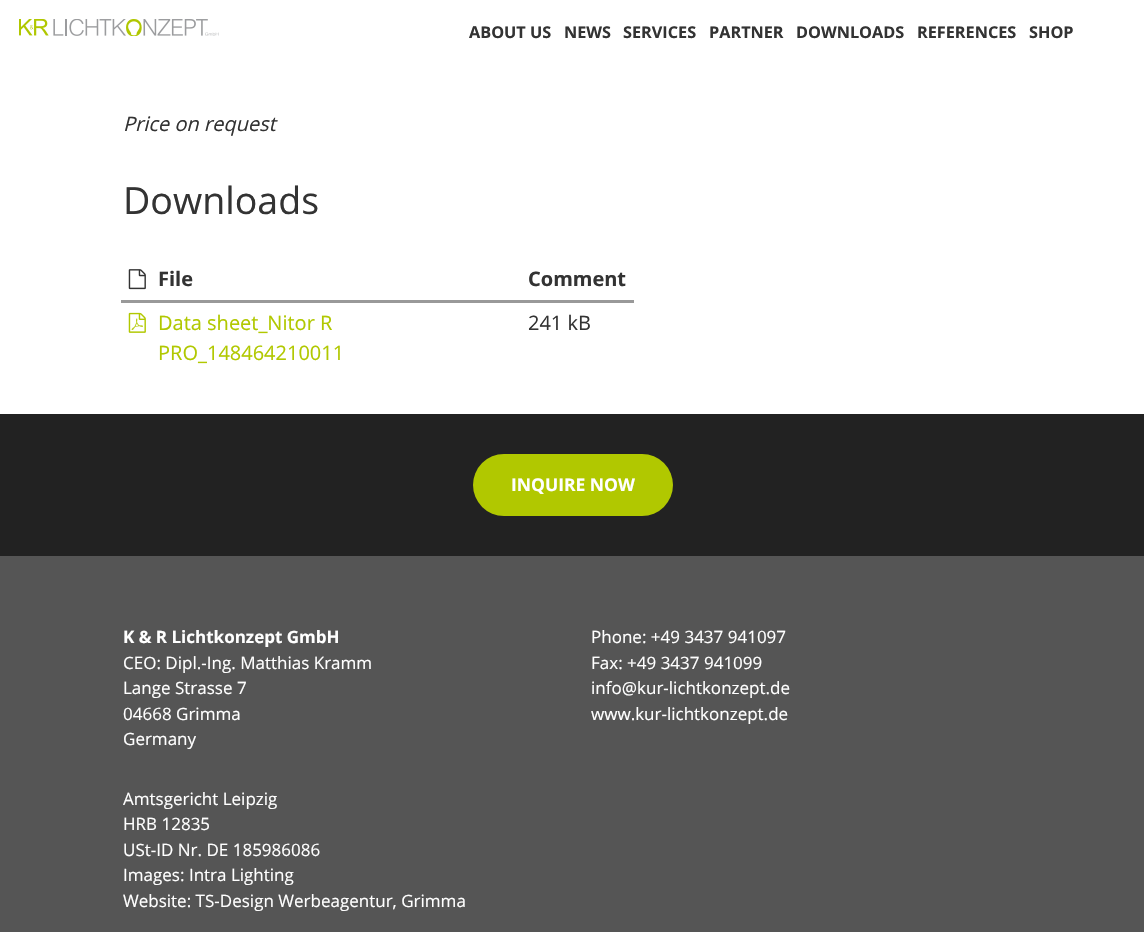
#include "include/core/SkBlurTypes.h"
#include "include/core/SkCanvas.h"
#include "include/core/SkData.h"
#include "include/core/SkFont.h"
#include "include/core/SkFontMgr.h"
#include "include/core/SkImage.h"
#include "include/core/SkMaskFilter.h"
#include "include/core/SkPaint.h"
#include "include/core/SkPathBuilder.h"
#include "include/core/SkTextBlob.h"
#include "include/effects/SkDashPathEffect.h"
#include "include/effects/SkGradientShader.h"
#include "include/utils/SkParsePath.h"

extern sk_sp<SkFontMgr> fontMgr;

void draw(SkCanvas* canvas) {
    SkPaint p;
    p.setAntiAlias(true);
    auto font = [&](const char* family, int weight, float size, bool italic = false) {
        SkFontStyle style(weight, SkFontStyle::kNormal_Width,
            italic ? SkFontStyle::kItalic_Slant : SkFontStyle::kUpright_Slant);
        SkFont result(fontMgr->matchFamilyStyle(family, style), size);
        result.setSubpixel(true);
        return result;
    };
    auto drawPhoto = [&](const char* path, float l, float t, float r, float b) {
        auto image = SkImages::DeferredFromEncodedData(SkData::MakeFromFileName(path));
        canvas->drawImageRect(image, SkRect::MakeLTRB(l, t, r, b), SkSamplingOptions());
    };
    canvas->clear(0xFFFFFFFF);
    drawPhoto("media/1.png", 19, 19, 219, 36);
    auto font1 = font("Open Sans", 700, 16.25f);
    p.setColor(0xFF333333);
    {
        const struct { const char* s; float x, y; } items[] = {
            {"ABOUT US", 469, 38},
            {"NEWS", 564, 38},
            {"SERVICES", 623, 38},
            {"PARTNER", 709, 38},
            {"DOWNLOADS", 796, 38},
            {"REFERENCES", 917, 38},
            {"SHOP", 1029, 38},
        };
        for (auto [s, x, y] : items) {
            canvas->drawString(s, x, y, font1, p);
        }
    }
    auto font2 = font("Open Sans", 400, 20, true);
    canvas->drawString("Price on request", 123, 131, font2, p);
    auto font3 = font("Open Sans", 400, 37.5f);
    canvas->drawString("Downloads", 123, 214, font3, p);
    drawPhoto("media/2.png", 128, 269, 146, 290);
    auto font4 = font("Open Sans", 700, 20);
    canvas->drawString("File", 158, 286, font4, p);
    p.setColor(0xFF999999);
    canvas->drawRect(SkRect::MakeLTRB(121, 300, 634, 303), p);
    p.setColor(0xFF333333);
    canvas->drawString("Comment", 528, 286, font4, p);
    drawPhoto("media/3.png", 128, 312, 146, 333);
    auto font5 = font("Open Sans", 400, 20);
    p.setColor(0xFFB1C800);
    canvas->drawString("Data sheet_Nitor R", 158, 330, font5, p);
    canvas->drawString("PRO_148464210011", 158, 360, font5, p);
    p.setColor(0xFF333333);
    canvas->drawString("241 kB", 528, 330, font5, p);
    p.setColor(0xFF222222);
    canvas->drawRect(SkRect::MakeLTRB(0, 414, 1144, 556), p);
    p.setColor(0xFFB1C800);
    canvas->drawRoundRect(SkRect::MakeLTRB(473, 454, 673, 516), 31, 31, p);
    auto font6 = font("Open Sans", 700, 17.5f);
    p.setColor(0xFFFFFFFF);
    canvas->drawString("INQUIRE NOW", 511, 491, font6, p);
    p.setColor(0xFF555555);
    canvas->drawRect(SkRect::MakeLTRB(0, 556, 1144, 932), p);
    auto font7 = font("Open Sans", 700, 17);
    p.setColor(0xFFFFFFFF);
    canvas->drawString("K & R Lichtkonzept GmbH", 123, 643, font7, p);
    auto font8 = font("Open Sans", 400, 17);
    {
        const struct { const char* s; float x, y; } items[] = {
            {"CEO: Dipl.-Ing. Matthias Kramm", 123, 669},
            {"Lange Strasse 7", 123, 694},
            {"04668 Grimma", 123, 720},
            {"Germany", 123, 745},
            {"Phone: +49 3437 941097", 591, 643},
            {"Fax: +49 3437 941099", 591, 669},
            {"info@kur-lichtkonzept.de", 591, 694},
            {"www.kur-lichtkonzept.de", 591, 720},
            {"Amtsgericht Leipzig", 123, 805},
            {"HRB 12835", 123, 830},
            {"USt-ID Nr. DE 185986086", 123, 856},
            {"Images: Intra Lighting", 123, 881},
            {"Website: TS-Design Werbeagentur, Grimma", 123, 907},
        };
        for (auto [s, x, y] : items) {
            canvas->drawString(s, x, y, font8, p);
        }
    }
}
